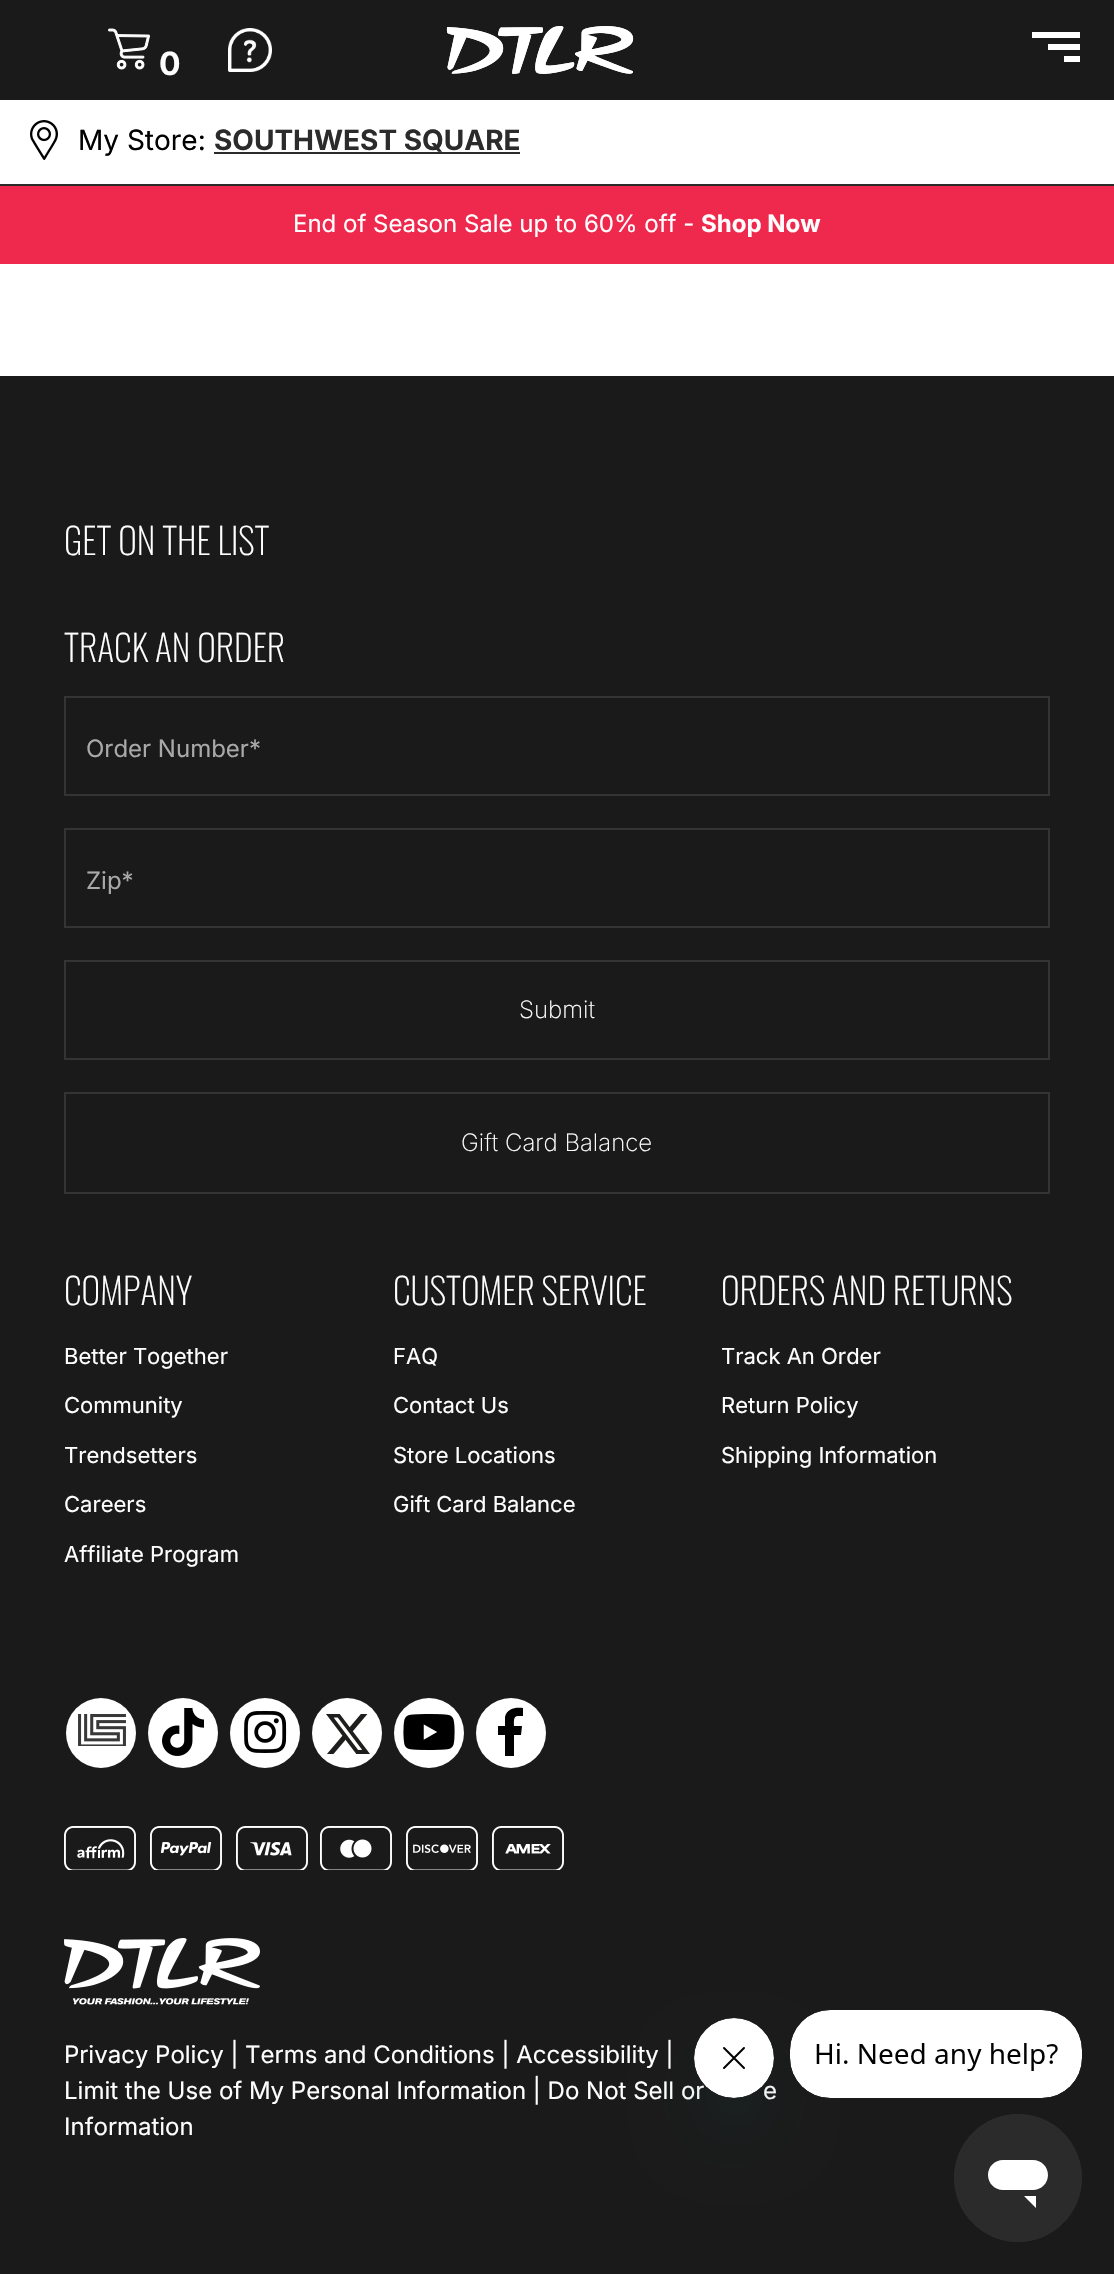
#include "include/core/SkBlurTypes.h"
#include "include/core/SkCanvas.h"
#include "include/core/SkData.h"
#include "include/core/SkFont.h"
#include "include/core/SkFontMgr.h"
#include "include/core/SkImage.h"
#include "include/core/SkMaskFilter.h"
#include "include/core/SkPaint.h"
#include "include/core/SkPathBuilder.h"
#include "include/core/SkTextBlob.h"
#include "include/effects/SkDashPathEffect.h"
#include "include/effects/SkGradientShader.h"
#include "include/utils/SkParsePath.h"

extern sk_sp<SkFontMgr> fontMgr;

void draw(SkCanvas* canvas) {
    SkPaint p;
    p.setAntiAlias(true);
    auto font = [&](const char* family, int weight, float size, bool italic = false) {
        SkFontStyle style(weight, SkFontStyle::kNormal_Width,
            italic ? SkFontStyle::kItalic_Slant : SkFontStyle::kUpright_Slant);
        SkFont result(fontMgr->matchFamilyStyle(family, style), size);
        result.setSubpixel(true);
        return result;
    };
    auto drawPhoto = [&](const char* path, float l, float t, float r, float b) {
        auto image = SkImages::DeferredFromEncodedData(SkData::MakeFromFileName(path));
        canvas->drawImageRect(image, SkRect::MakeLTRB(l, t, r, b), SkSamplingOptions());
    };
    canvas->clear(0xFFFFFFFF);
    p.setColor(0xFF1A1A1A);
    canvas->drawRect(SkRect::MakeLTRB(0, 0, 1114, 100), p);
    drawPhoto("media/1.png", 108, 28, 150, 70);
    auto font1 = font("Inter", 700, 32);
    p.setColor(0xFFFFFFFF);
    canvas->drawString("0", 159, 75, font1, p);
    drawPhoto("media/2.png", 228, 28, 272, 72);
    drawPhoto("media/3.png", 446, 26, 634, 74);
    {
        const struct { float l, t, r, b; SkColor color; } items[] = {
            {1032, 32, 1080, 38, 0xFFFFFFFF},
            {1048, 44, 1080, 50, 0xFFFFFFFF},
            {1064, 56, 1080, 62, 0xFFFFFFFF},
            {0, 184, 1114, 186, 0xFF2B2B2B},
        };
        for (auto [l, t, r, b, color] : items) {
            p.setColor(color);
            canvas->drawRect(SkRect::MakeLTRB(l, t, r, b), p);
        }
    }
    drawPhoto("media/4.png", 30, 120, 58, 160);
    auto font2 = font("Inter", 400, 28);
    p.setColor(0xFF000000);
    canvas->drawString("My Store:", 78, 150, font2, p);
    auto font3 = font("Inter", 700, 28);
    p.setColor(0xFF2B2B2B);
    canvas->drawString("SOUTHWEST SQUARE", 214, 150, font3, p);
    canvas->drawRect(SkRect::MakeLTRB(214, 152, 520, 154), p);
    p.setColor(0xFFEE294D);
    canvas->drawRect(SkRect::MakeLTRB(0, 186, 1114, 264), p);
    auto font4 = font("Inter", 400, 24);
    p.setColor(0xFFFFFFFF);
    canvas->drawString("End of Season Sale up to 60% off -", 293, 232, font4, p);
    auto font5 = font("Inter", 700, 24);
    canvas->drawString("Shop Now", 701, 232, font5, p);
    p.setColor(0xFF1A1A1A);
    canvas->drawRect(SkRect::MakeLTRB(0, 376, 1114, 2274), p);
    auto font6 = font("Oswald", 200, 36);
    p.setColor(0xFFFFFFFF);
    canvas->drawString("GET ON THE LIST", 64, 555, font6, p);
    canvas->drawString("TRACK AN ORDER", 64, 662, font6, p);
    p.setStyle(SkPaint::kStroke_Style);
    p.setStrokeWidth(2);
    p.setColor(0xFF343434);
    canvas->drawRect(SkRect::MakeLTRB(65, 697, 1049, 795), p);
    p.setStyle(SkPaint::kFill_Style);
    p.setColor(0xFFA9A9A9);
    canvas->drawString("Order Number*", 86, 757, font4, p);
    p.setStyle(SkPaint::kStroke_Style);
    p.setColor(0xFF343434);
    canvas->drawRect(SkRect::MakeLTRB(65, 829, 1049, 927), p);
    p.setStyle(SkPaint::kFill_Style);
    p.setColor(0xFFA9A9A9);
    canvas->drawString("Zip*", 86, 889, font4, p);
    p.setStyle(SkPaint::kStroke_Style);
    p.setColor(0xFF343434);
    canvas->drawRect(SkRect::MakeLTRB(65, 961, 1049, 1059), p);
    auto font7 = font("Inter", 200, 24);
    p.setStyle(SkPaint::kFill_Style);
    p.setColor(0xFFFFFFFF);
    canvas->drawString("Submit", 519, 1018, font7, p);
    p.setStyle(SkPaint::kStroke_Style);
    p.setColor(0xFF343434);
    canvas->drawRect(SkRect::MakeLTRB(65, 1093, 1049, 1193), p);
    p.setStyle(SkPaint::kFill_Style);
    p.setColor(0xFFFFFFFF);
    canvas->drawString("Gift Card Balance", 461, 1151, font7, p);
    canvas->drawString("COMPANY", 64, 1305, font6, p);
    auto font8 = font("Inter", 400, 22);
    {
        const struct { const char* s; float x, y; } items[] = {
            {"Better Together", 64, 1364},
            {"Community", 64, 1413},
            {"Trendsetters", 64, 1463},
            {"Careers", 64, 1512},
            {"Affiliate Program", 64, 1562},
        };
        for (auto [s, x, y] : items) {
            canvas->drawString(s, x, y, font8, p);
        }
    }
    canvas->drawString("CUSTOMER SERVICE", 393, 1305, font6, p);
    {
        const struct { const char* s; float x, y; } items[] = {
            {"FAQ", 393, 1364},
            {"Contact Us", 393, 1413},
            {"Store Locations", 393, 1463},
            {"Gift Card Balance", 393, 1512},
        };
        for (auto [s, x, y] : items) {
            canvas->drawString(s, x, y, font8, p);
        }
    }
    canvas->drawString("ORDERS AND RETURNS", 721, 1305, font6, p);
    {
        const struct { const char* s; float x, y; } items[] = {
            {"Track An Order", 721, 1364},
            {"Return Policy", 721, 1413},
            {"Shipping Information", 721, 1463},
        };
        for (auto [s, x, y] : items) {
            canvas->drawString(s, x, y, font8, p);
        }
    }
    canvas->drawCircle(101, 1733, 35, p);
    drawPhoto("media/5.png", 78, 1714, 126, 1746);
    canvas->drawCircle(183, 1733, 35, p);
    drawPhoto("media/6.png", 162, 1708, 204, 1756);
    canvas->drawCircle(265, 1733, 35, p);
    drawPhoto("media/7.png", 244, 1711, 287, 1753);
    canvas->drawCircle(347, 1733, 35, p);
    drawPhoto("media/8.png", 326, 1714, 370, 1754);
    canvas->drawCircle(429, 1733, 35, p);
    drawPhoto("media/9.png", 403, 1714, 455, 1750);
    canvas->drawCircle(511, 1733, 35, p);
    p.setColor(0xFF000000);
    canvas->drawPath(SkPathBuilder().moveTo(518, 1716).cubicTo(513, 1716, 514, 1722, 514, 1726).lineTo(522, 1726).lineTo(521, 1735).lineTo(514, 1735).lineTo(514, 1756).lineTo(505, 1756).lineTo(505, 1735).lineTo(498, 1735).lineTo(498, 1726).lineTo(505, 1726).lineTo(505, 1717).cubicTo(507, 1708, 516, 1707, 523, 1708).lineTo(523, 1716).close().detach(), p);
    drawPhoto("media/10.png", 64, 1826, 136, 1870);
    drawPhoto("media/11.png", 150, 1826, 222, 1870);
    drawPhoto("media/12.png", 236, 1826, 308, 1870);
    drawPhoto("media/13.png", 320, 1826, 392, 1870);
    drawPhoto("media/14.png", 406, 1826, 478, 1870);
    drawPhoto("media/15.png", 492, 1826, 564, 1870);
    drawPhoto("media/16.png", 64, 1938, 260, 2005);
    p.setColor(0xFFFFFFFF);
    {
        const struct { const char* s; float x, y; } items[] = {
            {"Privacy Policy | Terms and Conditions | Accessibility |", 64, 2063},
            {"Limit the Use of My Personal Information | Do Not Sell or", 64, 2099},
            {"e", 763, 2099},
            {"Information", 64, 2135},
        };
        for (auto [s, x, y] : items) {
            canvas->drawString(s, x, y, font4, p);
        }
    }
    p.setColor(0x2617494D);
    p.setMaskFilter(SkMaskFilter::MakeBlur(kNormal_SkBlurStyle, 30));
    canvas->drawRoundRect(SkRect::MakeLTRB(694, 2058, 774, 2138), 40, 40, p);
    p.setMaskFilter(nullptr);
    drawPhoto("media/17.png", 694, 2018, 774, 2098);
    drawPhoto("media/18.png", 790, 2010, 1082, 2098);
    drawPhoto("media/19.png", 954, 2114, 1082, 2242);
}
